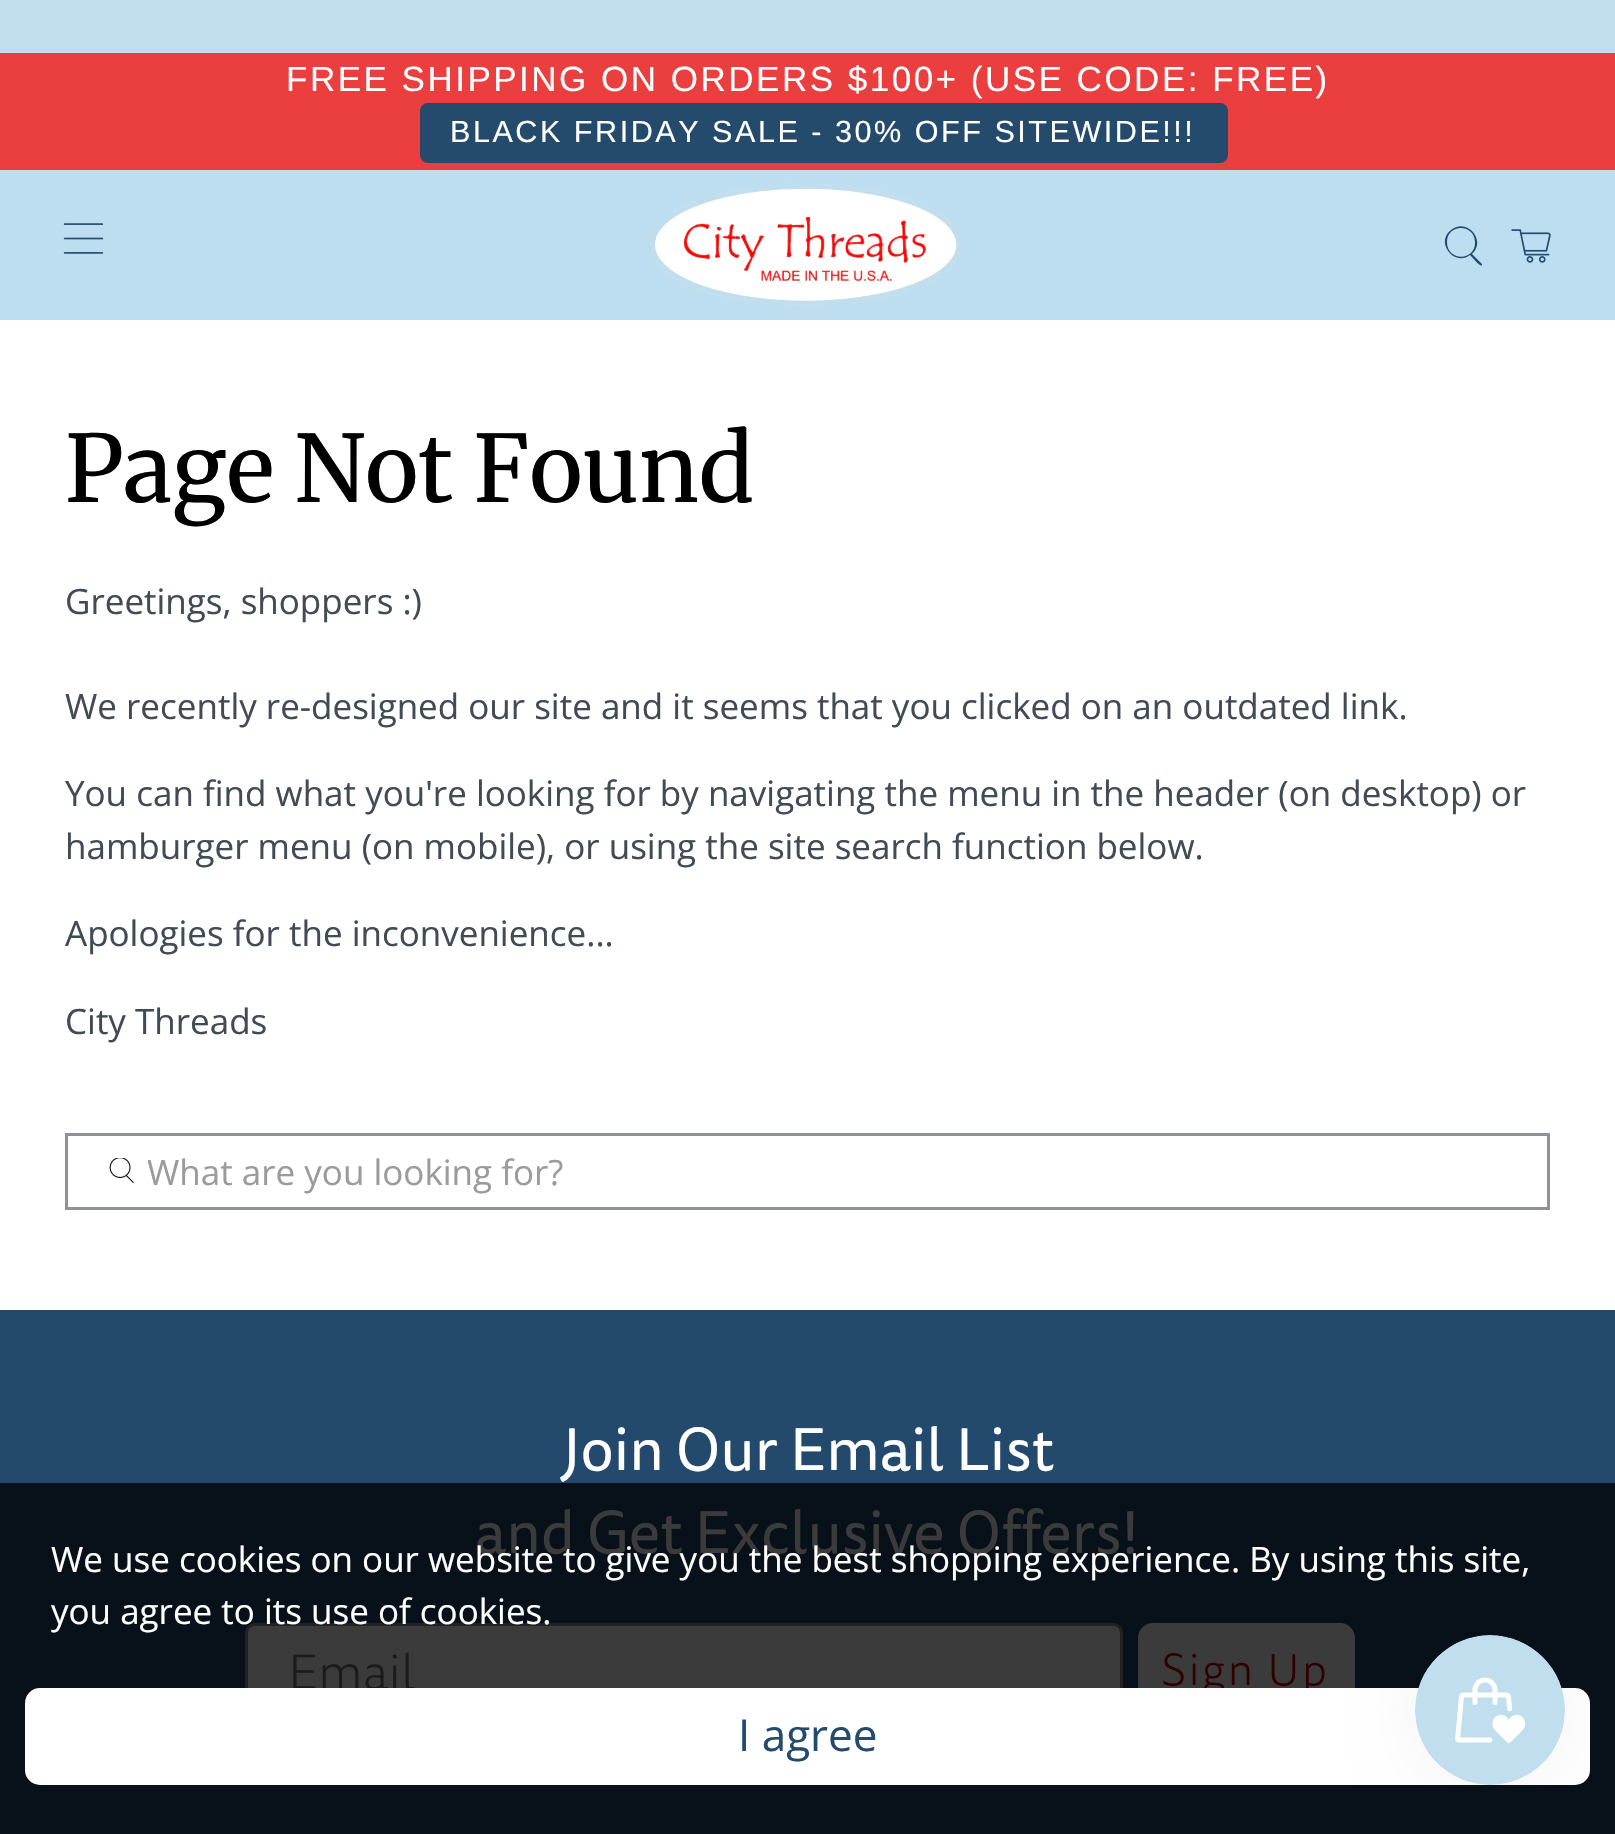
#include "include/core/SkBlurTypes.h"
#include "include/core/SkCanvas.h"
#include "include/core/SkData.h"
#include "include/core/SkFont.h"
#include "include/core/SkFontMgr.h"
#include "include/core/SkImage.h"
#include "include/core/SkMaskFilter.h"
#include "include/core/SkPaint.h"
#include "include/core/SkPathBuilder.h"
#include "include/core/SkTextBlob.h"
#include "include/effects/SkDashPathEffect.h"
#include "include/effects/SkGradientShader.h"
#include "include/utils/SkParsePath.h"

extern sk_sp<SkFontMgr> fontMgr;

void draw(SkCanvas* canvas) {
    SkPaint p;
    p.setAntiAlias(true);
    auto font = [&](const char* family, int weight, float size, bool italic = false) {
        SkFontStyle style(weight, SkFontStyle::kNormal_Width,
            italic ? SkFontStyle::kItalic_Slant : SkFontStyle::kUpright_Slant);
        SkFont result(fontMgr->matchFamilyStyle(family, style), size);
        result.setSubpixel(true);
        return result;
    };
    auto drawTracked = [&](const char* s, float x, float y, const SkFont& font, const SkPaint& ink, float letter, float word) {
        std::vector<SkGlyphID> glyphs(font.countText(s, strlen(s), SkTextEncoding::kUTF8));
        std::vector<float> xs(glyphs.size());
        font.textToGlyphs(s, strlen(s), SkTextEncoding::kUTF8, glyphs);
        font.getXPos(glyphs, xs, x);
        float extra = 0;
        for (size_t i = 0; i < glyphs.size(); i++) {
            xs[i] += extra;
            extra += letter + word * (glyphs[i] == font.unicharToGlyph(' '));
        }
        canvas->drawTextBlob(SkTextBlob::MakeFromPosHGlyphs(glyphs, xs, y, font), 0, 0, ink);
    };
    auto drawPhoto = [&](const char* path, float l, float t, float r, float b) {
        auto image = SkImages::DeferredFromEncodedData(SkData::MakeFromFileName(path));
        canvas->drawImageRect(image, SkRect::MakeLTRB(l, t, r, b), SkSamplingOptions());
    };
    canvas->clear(0xFFFFFFFF);
    p.setColor(0xFFC1DEED);
    canvas->drawRect(SkRect::MakeLTRB(0, 0, 1615, 53), p);
    p.setColor(0xFFEB3E3E);
    canvas->drawRect(SkRect::MakeLTRB(0, 53, 1615, 170), p);
    auto font1 = font("Liberation Sans", 400, 35);
    p.setColor(0xFFFFFFFF);
    drawTracked("FREE SHIPPING ON ORDERS $100+ (USE CODE: FREE)", 286, 91, font1, p, 2.5f, 0);
    p.setColor(0xFF244A6C);
    canvas->drawRoundRect(SkRect::MakeLTRB(420, 103, 1228, 163), 8, 8, p);
    auto font2 = font("Liberation Sans", 400, 30.6f);
    p.setColor(0xFFFFFFFF);
    drawTracked("BLACK FRIDAY SALE - 30% OFF SITEWIDE!!!", 450, 142, font2, p, 2.5f, 0);
    p.setColor(0xFFBDDEF0);
    canvas->drawRect(SkRect::MakeLTRB(0, 170, 1615, 320), p);
    drawPhoto("media/1.png", 63, 223, 104, 254);
    drawPhoto("media/2.png", 650, 183, 962, 307);
    p.setColor(0xFF244A6C);
    canvas->drawPath(SkPathBuilder().moveTo(1482, 264).lineTo(1472, 254).cubicTo(1487, 241, 1467, 217, 1451, 230).cubicTo(1435, 242, 1454, 267, 1470, 255).cubicTo(1473, 258, 1481, 268, 1482, 265).close().moveTo(1447, 242).cubicTo(1447, 224, 1474, 223, 1475, 242).cubicTo(1476, 261, 1447, 262, 1447, 242).close().detach(), p);
    drawPhoto("media/3.png", 1511, 229, 1551, 263);
    auto font3 = font("Merriweather", 400, 92.5f);
    p.setColor(0xFF000000);
    canvas->drawString("Page Not Found", 65, 502, font3, p);
    auto font4 = font("Open Sans", 400, 35);
    p.setColor(0xFF414B56);
    {
        const struct { const char* s; float x, y; } items[] = {
            {"Greetings, shoppers :)", 65, 614},
            {"We recently re-designed our site and it seems that you clicked on an outdated link.", 65, 719},
            {"You can find what you're looking for by navigating the menu in the header (on desktop) or", 65, 806},
            {"hamburger menu (on mobile), or using the site search function below.", 65, 859},
            {"Apologies for the inconvenience...", 65, 946},
            {"City Threads", 65, 1034},
        };
        for (auto [s, x, y] : items) {
            canvas->drawString(s, x, y, font4, p);
        }
    }
    p.setStyle(SkPaint::kStroke_Style);
    p.setStrokeWidth(3);
    p.setColor(0xFF8F9397);
    canvas->drawRect(SkRect::MakeLTRB(66.5f, 1134.5f, 1548.5f, 1208.5f), p);
    drawPhoto("media/4.png", 109, 1158, 134, 1183);
    canvas->save();
    canvas->clipRect(SkRect::MakeLTRB(148, 1148, 1528, 1195));
    p.setStyle(SkPaint::kFill_Style);
    p.setColor(0xFF9B9B9B);
    canvas->drawString("What are you looking for?", 147, 1185, font4, p);
    canvas->restore();
    p.setColor(0xFF234A6C);
    canvas->drawRect(SkRect::MakeLTRB(0, 1310, 1615, 1483), p);
    p.setColor(0xFF081119);
    canvas->drawRect(SkRect::MakeLTRB(0, 1483, 1615, 1834), p);
    auto font5 = font("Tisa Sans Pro", 400, 60);
    p.setColor(0xFFFFFFFF);
    canvas->drawString("Join Our Email List", 561, 1470, font5, p);
    p.setColor(0xFF3B3B3B);
    canvas->drawString("and Get Exclusive Offers!", 475, 1553, font5, p);
    canvas->drawRoundRect(SkRect::MakeLTRB(246.5f, 1624.5f, 1121.5f, 1721.5f), 8.5f, 8.5f, p);
    p.setStyle(SkPaint::kStroke_Style);
    p.setColor(0xFF222223);
    canvas->drawRoundRect(SkRect::MakeLTRB(246.5f, 1624.5f, 1121.5f, 1721.5f), 8.5f, 8.5f, p);
    auto font6 = font("Tisa Sans Pro", 300, 50);
    p.setStyle(SkPaint::kFill_Style);
    p.setColor(0xFF1B1B1B);
    canvas->drawString("Email", 288, 1689, font6, p);
    p.setColor(0xFF3B3B3B);
    canvas->drawRoundRect(SkRect::MakeLTRB(1138, 1623, 1355, 1723), 15, 15, p);
    auto font7 = font("Tisa Sans Pro", 300, 45);
    p.setColor(0xFF2E0000);
    drawTracked("Sign Up", 1161, 1685, font7, p, 2.5f, 0);
    p.setColor(0xFFFFFFFF);
    canvas->drawRoundRect(SkRect::MakeLTRB(25, 1688, 1590, 1785), 15, 15, p);
    p.setColor(0x0D000000);
    p.setMaskFilter(SkMaskFilter::MakeBlur(kNormal_SkBlurStyle, 31));
    canvas->drawRoundRect(SkRect::MakeLTRB(1415, 1635, 1565, 1785), 75, 75, p);
    p.setMaskFilter(nullptr);
    drawPhoto("media/5.png", 1415, 1635, 1565, 1785);
    p.setColor(0xFFFFFFFF);
    canvas->drawString("We use cookies on our website to give you the best shopping experience. By using this site,", 51, 1572, font4, p);
    canvas->drawString("you agree to its use of cookies.", 51, 1624, font4, p);
    auto font8 = font("Open Sans", 400, 44);
    p.setColor(0xFF244A6C);
    canvas->drawString("I agree", 738, 1751, font8, p);
}
